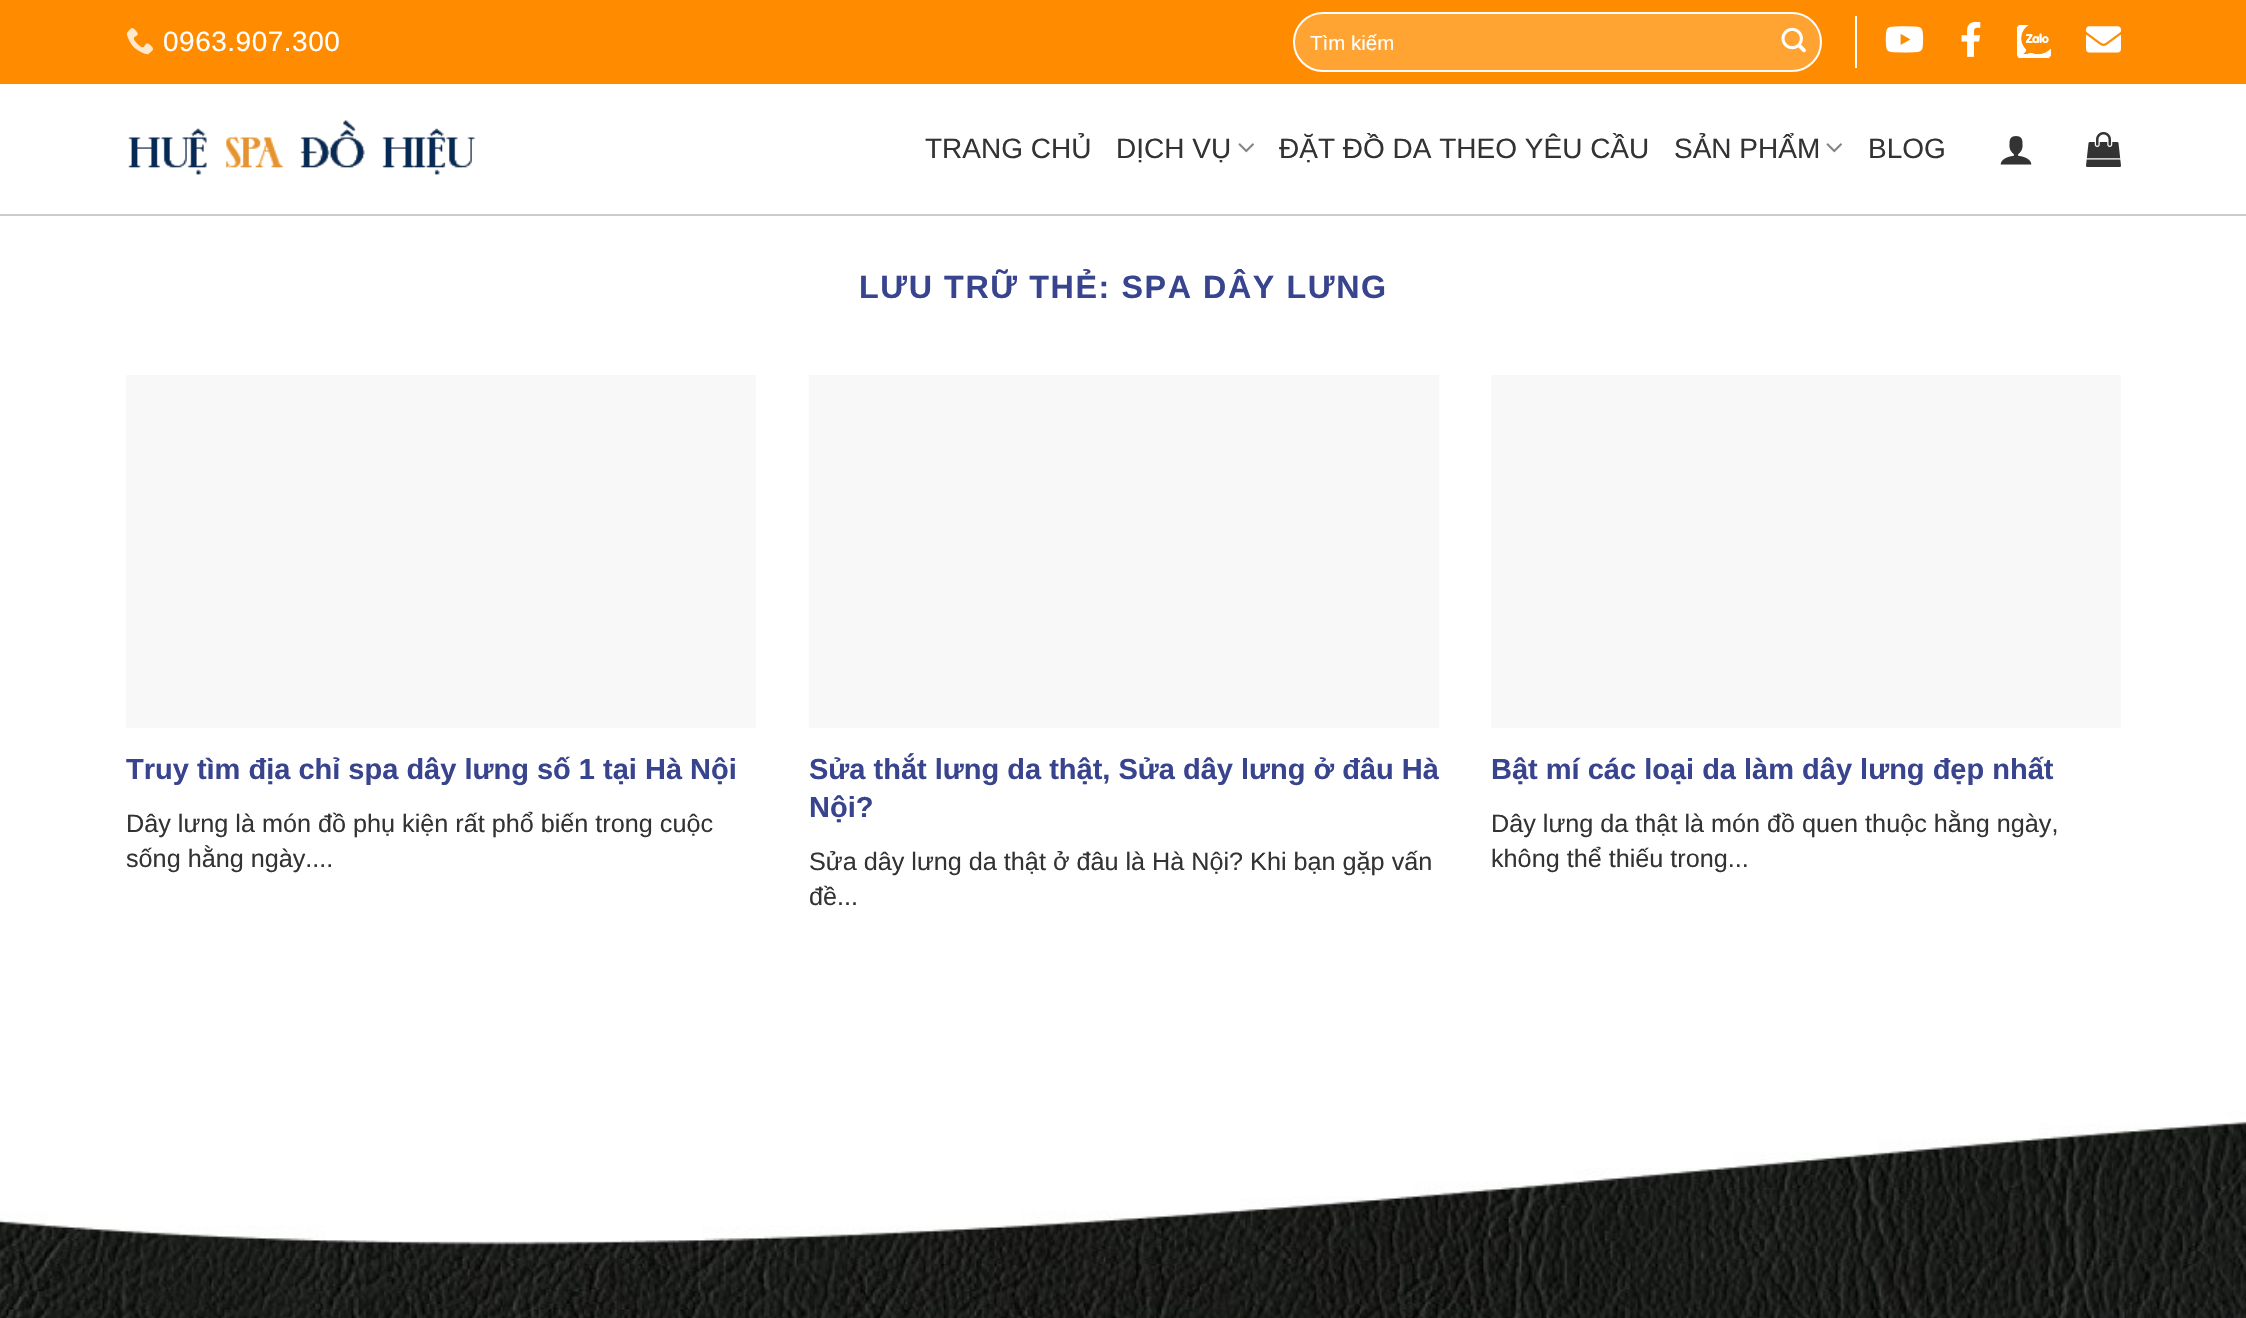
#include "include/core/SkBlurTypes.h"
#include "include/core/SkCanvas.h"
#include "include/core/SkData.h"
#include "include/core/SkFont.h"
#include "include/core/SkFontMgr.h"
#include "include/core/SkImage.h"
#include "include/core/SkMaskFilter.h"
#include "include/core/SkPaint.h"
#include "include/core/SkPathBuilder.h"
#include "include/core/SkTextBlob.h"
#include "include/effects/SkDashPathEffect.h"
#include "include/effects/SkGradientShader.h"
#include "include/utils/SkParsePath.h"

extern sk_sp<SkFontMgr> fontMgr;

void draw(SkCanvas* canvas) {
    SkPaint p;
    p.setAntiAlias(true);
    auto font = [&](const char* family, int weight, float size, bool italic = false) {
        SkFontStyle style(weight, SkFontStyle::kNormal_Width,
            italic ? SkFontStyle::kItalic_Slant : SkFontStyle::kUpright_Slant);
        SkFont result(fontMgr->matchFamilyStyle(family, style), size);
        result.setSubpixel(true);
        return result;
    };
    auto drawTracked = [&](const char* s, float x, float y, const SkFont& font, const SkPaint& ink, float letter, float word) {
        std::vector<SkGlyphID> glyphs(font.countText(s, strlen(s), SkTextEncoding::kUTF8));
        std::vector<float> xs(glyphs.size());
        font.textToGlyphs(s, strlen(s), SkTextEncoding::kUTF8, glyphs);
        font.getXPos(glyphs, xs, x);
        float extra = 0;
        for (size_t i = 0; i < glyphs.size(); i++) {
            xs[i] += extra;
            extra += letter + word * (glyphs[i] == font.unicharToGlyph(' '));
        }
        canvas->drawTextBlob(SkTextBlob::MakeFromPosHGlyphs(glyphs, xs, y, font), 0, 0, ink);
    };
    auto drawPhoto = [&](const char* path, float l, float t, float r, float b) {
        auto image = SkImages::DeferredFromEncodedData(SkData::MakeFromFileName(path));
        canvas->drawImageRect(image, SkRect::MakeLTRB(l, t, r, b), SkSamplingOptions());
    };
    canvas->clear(0xFFFFFFFF);
    p.setColor(0xFFFF8C00);
    canvas->drawRect(SkRect::MakeLTRB(0, 0, 2246, 84), p);
    drawPhoto("media/1.png", 126, 28, 154, 55);
    auto font1 = font("Liberation Sans", 400, 28);
    p.setColor(0xFFFFFFFF);
    drawTracked("0963.907.300", 163, 51, font1, p, 0.5f, 0);
    p.setColor(0xFFFFA333);
    canvas->drawRoundRect(SkRect::MakeLTRB(1294, 13, 1821, 71), 29, 29, p);
    p.setStyle(SkPaint::kStroke_Style);
    p.setStrokeWidth(2);
    p.setColor(0xFFFFFFFF);
    canvas->drawRoundRect(SkRect::MakeLTRB(1294, 13, 1821, 71), 29, 29, p);
    auto font2 = font("Liberation Sans", 400, 20.5f);
    p.setStyle(SkPaint::kFill_Style);
    canvas->drawString("Tìm kiếm", 1310, 50, font2, p);
    drawPhoto("media/2.png", 1781, 27, 1806, 53);
    canvas->drawRect(SkRect::MakeLTRB(1855, 16, 1857, 68), p);
    drawPhoto("media/3.png", 1885, 26, 1924, 53);
    drawPhoto("media/4.png", 1961, 21, 1981, 57);
    drawPhoto("media/5.png", 2017, 25, 2051, 58);
    drawPhoto("media/6.png", 2086, 26, 2121, 53);
    p.setColor(0xFFCCCCCC);
    canvas->drawRect(SkRect::MakeLTRB(0, 214, 2246, 216), p);
    drawPhoto("media/7.png", 128, 120, 475, 175);
    p.setColor(0xFF333333);
    canvas->drawString("TRANG CHỦ", 925, 158, font1, p);
    canvas->drawString("DỊCH VỤ", 1116, 158, font1, p);
    drawPhoto("media/8.png", 1238, 143, 1254, 153);
    canvas->drawString("ĐẶT ĐỒ DA THEO YÊU CẦU", 1279, 158, font1, p);
    canvas->drawString("SẢN PHẨM", 1674, 158, font1, p);
    drawPhoto("media/8.png", 1826, 143, 1842, 153);
    canvas->drawString("BLOG", 1868, 158, font1, p);
    drawPhoto("media/9.png", 2000, 136, 2032, 165);
    drawPhoto("media/10.png", 2086, 132, 2121, 167);
    auto font3 = font("Liberation Sans", 700, 32.25f);
    p.setColor(0xFF38448E);
    drawTracked("LƯU TRỮ THẺ: SPA DÂY LƯNG", 859, 298, font3, p, 1.6f, 0);
    p.setColor(0xFFF8F8F8);
    canvas->drawRect(SkRect::MakeLTRB(126, 375, 756, 728), p);
    auto font4 = font("Liberation Sans", 700, 29);
    p.setColor(0xFF38448E);
    canvas->drawString("Truy tìm địa chỉ spa dây lưng số 1 tại Hà Nội", 126, 779, font4, p);
    auto font5 = font("Liberation Sans", 400, 25.2f);
    p.setColor(0xFF333333);
    canvas->drawString("Dây lưng là món đồ phụ kiện rất phổ biến trong cuộc", 126, 832, font5, p);
    canvas->drawString("sống hằng ngày....", 126, 867, font5, p);
    p.setColor(0xFFF8F8F8);
    canvas->drawRect(SkRect::MakeLTRB(809, 375, 1439, 728), p);
    p.setColor(0xFF38448E);
    canvas->drawString("Sửa thắt lưng da thật, Sửa dây lưng ở đâu Hà", 809, 779, font4, p);
    canvas->drawString("Nội?", 809, 817, font4, p);
    p.setColor(0xFF333333);
    canvas->drawString("Sửa dây lưng da thật ở đâu là Hà Nội? Khi bạn gặp vấn", 809, 870, font5, p);
    canvas->drawString("đề...", 809, 905, font5, p);
    p.setColor(0xFFF8F8F8);
    canvas->drawRect(SkRect::MakeLTRB(1491, 375, 2121, 728), p);
    p.setColor(0xFF38448E);
    canvas->drawString("Bật mí các loại da làm dây lưng đẹp nhất", 1491, 779, font4, p);
    p.setColor(0xFF333333);
    canvas->drawString("Dây lưng da thật là món đồ quen thuộc hằng ngày,", 1491, 832, font5, p);
    canvas->drawString("không thể thiếu trong...", 1491, 867, font5, p);
    drawPhoto("media/11.png", 0, 1110, 2246, 1318);
}
